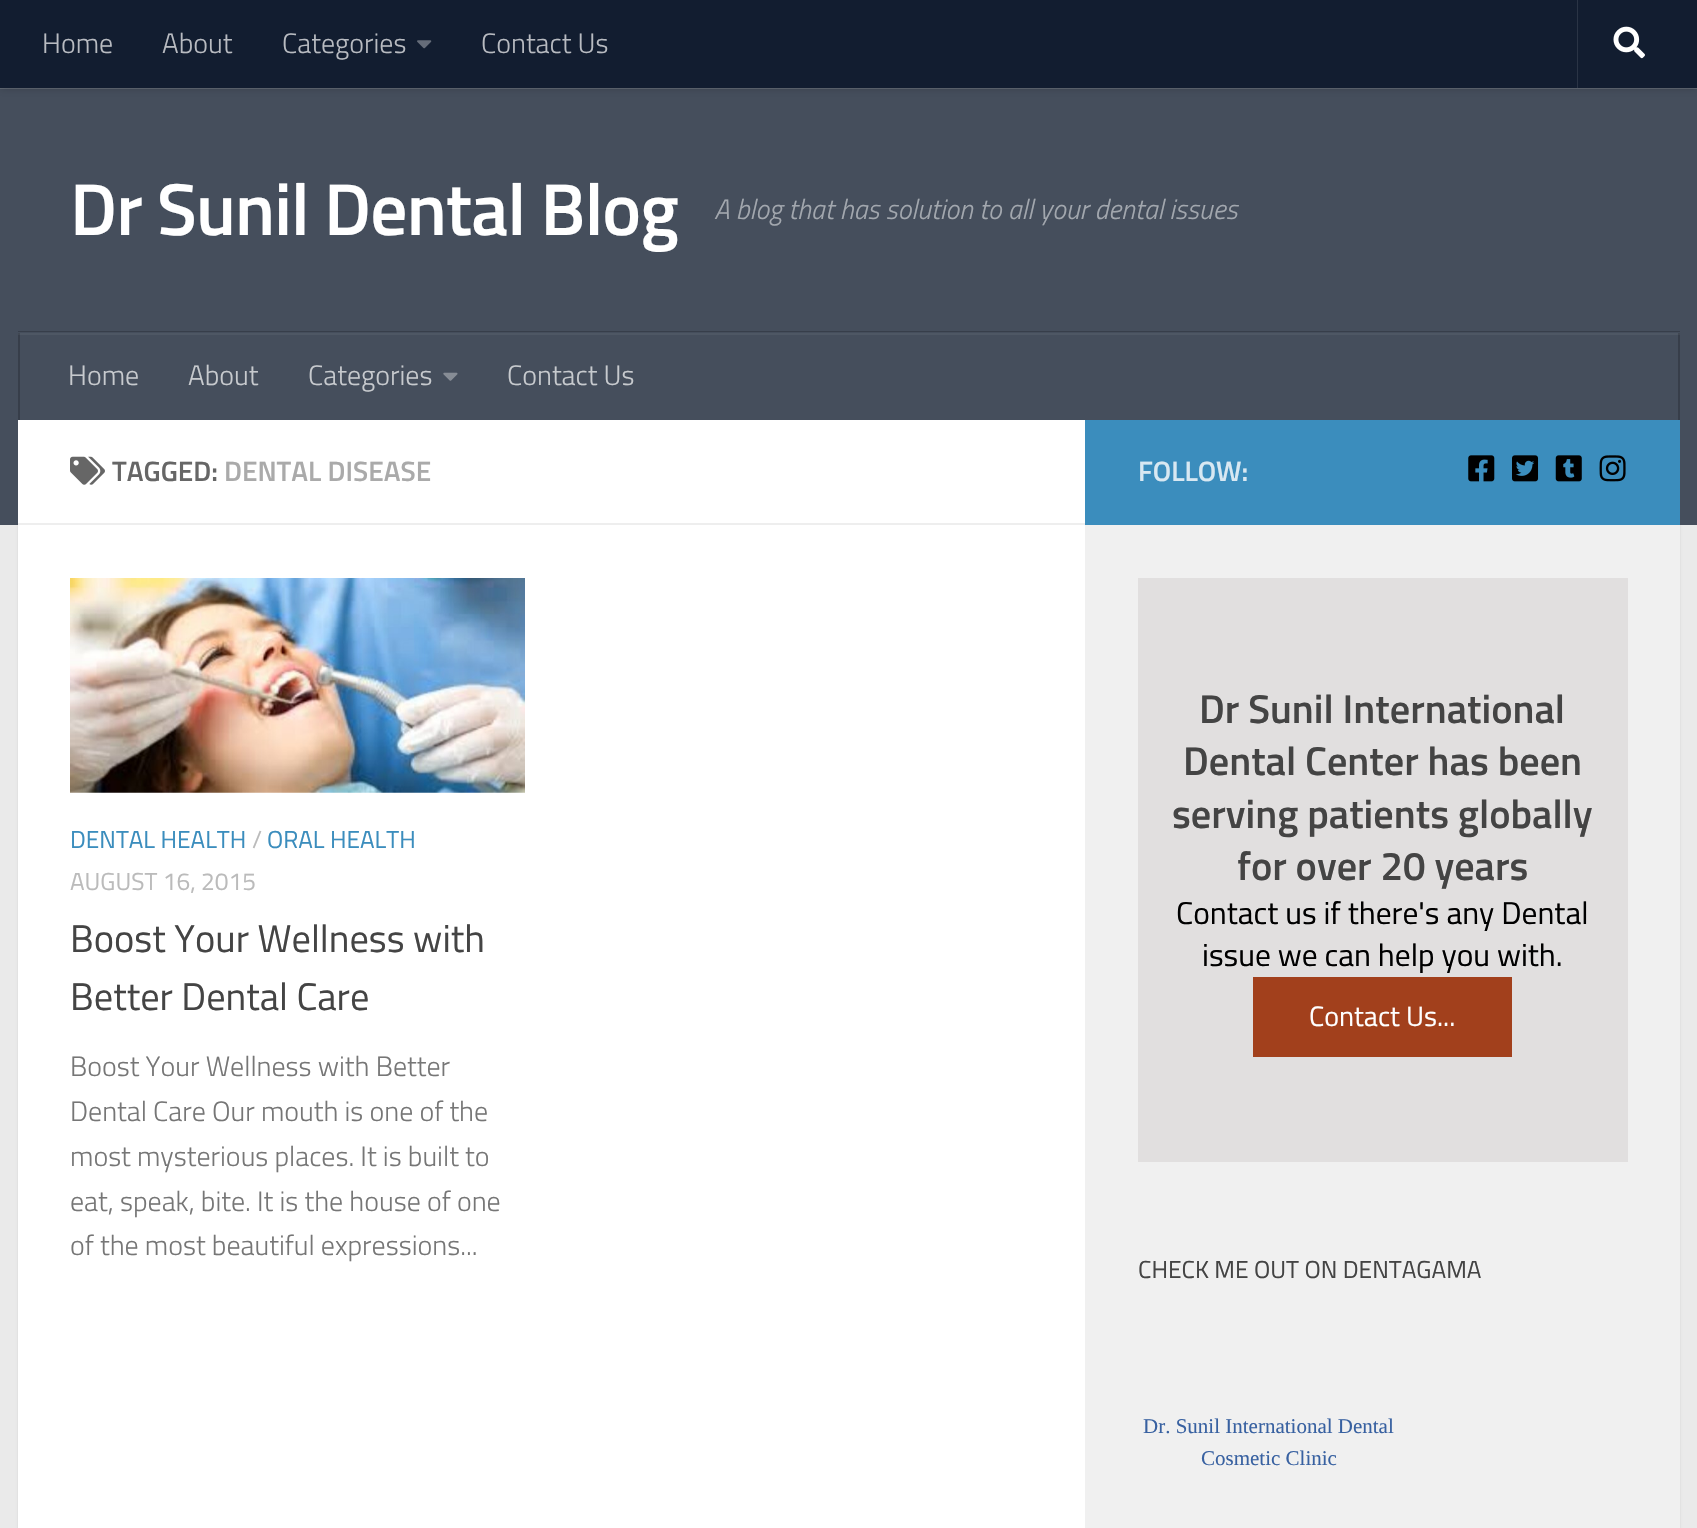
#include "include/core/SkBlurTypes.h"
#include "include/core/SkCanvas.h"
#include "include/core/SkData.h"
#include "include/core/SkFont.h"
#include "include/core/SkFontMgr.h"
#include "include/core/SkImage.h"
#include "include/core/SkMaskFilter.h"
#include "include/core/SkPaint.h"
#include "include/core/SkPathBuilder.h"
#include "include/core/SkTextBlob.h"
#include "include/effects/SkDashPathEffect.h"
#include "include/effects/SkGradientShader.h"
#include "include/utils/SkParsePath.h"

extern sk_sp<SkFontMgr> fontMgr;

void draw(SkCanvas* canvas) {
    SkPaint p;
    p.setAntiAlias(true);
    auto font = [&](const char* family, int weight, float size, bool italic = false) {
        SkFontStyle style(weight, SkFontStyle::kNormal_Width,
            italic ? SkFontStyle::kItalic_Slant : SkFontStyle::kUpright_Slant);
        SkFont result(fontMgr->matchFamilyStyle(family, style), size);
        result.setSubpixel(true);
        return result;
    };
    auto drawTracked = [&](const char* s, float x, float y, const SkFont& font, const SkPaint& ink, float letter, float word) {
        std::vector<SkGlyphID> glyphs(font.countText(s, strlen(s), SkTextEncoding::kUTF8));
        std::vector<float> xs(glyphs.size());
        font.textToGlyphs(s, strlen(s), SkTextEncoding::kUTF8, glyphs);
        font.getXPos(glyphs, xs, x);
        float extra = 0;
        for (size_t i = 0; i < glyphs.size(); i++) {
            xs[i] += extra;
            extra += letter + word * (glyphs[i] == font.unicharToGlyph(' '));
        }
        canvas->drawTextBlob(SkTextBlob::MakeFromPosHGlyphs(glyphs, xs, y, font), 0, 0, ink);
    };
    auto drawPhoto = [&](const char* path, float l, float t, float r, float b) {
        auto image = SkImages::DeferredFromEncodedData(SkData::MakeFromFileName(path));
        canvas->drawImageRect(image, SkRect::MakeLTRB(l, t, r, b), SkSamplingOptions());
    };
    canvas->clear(0xFFEAEAEA);
    p.setColor(0x1A000000);
    p.setMaskFilter(SkMaskFilter::MakeBlur(kNormal_SkBlurStyle, 1));
    canvas->drawRect(SkRect::MakeLTRB(18, 422, 1680, 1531), p);
    p.setMaskFilter(nullptr);
    p.setColor(0xFF454E5C);
    canvas->drawRect(SkRect::MakeLTRB(0, 89, 1697, 525), p);
    p.setColor(0xFF4E5764);
    canvas->drawRect(SkRect::MakeLTRB(18, 333, 1680, 335), p);
    p.setColor(0xFF616974);
    canvas->drawPath(SkPathBuilder().moveTo(0, 88).lineTo(0, 89).lineTo(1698, 89).lineTo(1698, 2).lineTo(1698, 88).close().detach(), p);
    p.setColor(0x33000000);
    p.setMaskFilter(SkMaskFilter::MakeBlur(kNormal_SkBlurStyle, 4.5f));
    canvas->drawRect(SkRect::MakeLTRB(0, 0, 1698, 88), p);
    p.setMaskFilter(nullptr);
    p.setColor(0xFF121D30);
    canvas->drawRect(SkRect::MakeLTRB(0, 0, 1697, 88), p);
    auto font1 = font("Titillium", 300, 28);
    p.setColor(0xFFB8BBC1);
    {
        const struct { const char* s; float x, y; } items[] = {
            {"Home", 42, 53},
            {"About", 162, 53},
            {"Categories", 282, 53},
        };
        for (auto [s, x, y] : items) {
            canvas->drawString(s, x, y, font1, p);
        }
    }
    drawPhoto("media/1.png", 417, 40, 432, 49);
    canvas->drawString("Contact Us", 481, 53, font1, p);
    p.setColor(0xFF2A3445);
    canvas->drawPath(SkPathBuilder().moveTo(1577, 0).lineTo(1577, 88).lineTo(1678, 88).lineTo(1578, 88).lineTo(1578, 0).close().detach(), p);
    drawPhoto("media/2.png", 1613, 26, 1645, 59);
    auto font2 = font("Titillium", 600, 73.5f);
    p.setColor(0xFFFFFFFF);
    drawTracked("Dr Sunil Dental Blog", 70, 235, font2, p, -0.9f, 0);
    auto font3 = font("Titillium", 300, 28, true);
    p.setColor(0xFFA2A7AE);
    canvas->drawString("A blog that has solution to all your dental issues", 714, 219, font3, p);
    {
        const struct { float l, t, r, b; SkColor color; } items[] = {
            {18, 331, 1680, 332, 0xFF373E4A},
            {1678, 333, 1680, 420, 0xFF373E4A},
            {1678, 333, 1680, 335, 0xFF414853},
            {18, 333, 20, 420, 0xFF373E4A},
            {18, 333, 20, 335, 0xFF414853},
        };
        for (auto [l, t, r, b, color] : items) {
            p.setColor(color);
            canvas->drawRect(SkRect::MakeLTRB(l, t, r, b), p);
        }
    }
    p.setColor(0xFFC7CACE);
    {
        const struct { const char* s; float x, y; } items[] = {
            {"Home", 68, 385},
            {"About", 188, 385},
            {"Categories", 308, 385},
        };
        for (auto [s, x, y] : items) {
            canvas->drawString(s, x, y, font1, p);
        }
    }
    drawPhoto("media/3.png", 443, 372, 458, 381);
    canvas->drawString("Contact Us", 507, 385, font1, p);
    p.setColor(0xFFFFFFFF);
    canvas->drawRect(SkRect::MakeLTRB(18, 420, 1085, 1528), p);
    p.setColor(0xFFEEEEEE);
    canvas->drawRect(SkRect::MakeLTRB(18, 523, 1085, 525), p);
    drawPhoto("media/4.png", 70, 456, 105, 485);
    auto font4 = font("Titillium", 600, 28);
    p.setColor(0xFF666666);
    canvas->drawString("TAGGED:", 112, 481, font4, p);
    p.setColor(0xFFAAAAAA);
    canvas->drawString("DENTAL DISEASE", 224, 481, font4, p);
    drawPhoto("media/5.png", 70, 578, 525, 793);
    auto font5 = font("Titillium", 400, 24.5f);
    p.setColor(0xFF3B8DBD);
    canvas->drawString("DENTAL HEALTH", 70, 848, font5, p);
    p.setColor(0xFFBBBBBB);
    canvas->drawString("/", 252, 848, font5, p);
    p.setColor(0xFF3B8DBD);
    canvas->drawString("ORAL HEALTH", 267, 848, font5, p);
    p.setColor(0xFFBBBBBB);
    canvas->drawString("AUGUST 16, 2015", 70, 890, font5, p);
    auto font6 = font("Titillium", 400, 38.5f);
    p.setColor(0xFF444444);
    canvas->drawString("Boost Your Wellness with", 70, 952, font6, p);
    canvas->drawString("Better Dental Care", 70, 1010, font6, p);
    p.setColor(0xFF767676);
    {
        const struct { const char* s; float x, y; } items[] = {
            {"Boost Your Wellness with Better", 70, 1076},
            {"Dental Care Our mouth is one of the", 70, 1121},
            {"most mysterious places. It is built to", 70, 1166},
            {"eat, speak, bite. It is the house of one", 70, 1211},
            {"of the most beautiful expressions...", 70, 1255},
        };
        for (auto [s, x, y] : items) {
            canvas->drawString(s, x, y, font1, p);
        }
    }
    p.setColor(0xFF3B8DBD);
    canvas->drawRect(SkRect::MakeLTRB(1085, 420, 1680, 525), p);
    p.setColor(0xFFD8E8F2);
    canvas->drawString("FOLLOW:", 1138, 481, font4, p);
    drawPhoto("media/6.png", 1468, 455, 1495, 482);
    drawPhoto("media/7.png", 1512, 455, 1539, 482);
    drawPhoto("media/8.png", 1555, 455, 1582, 482);
    drawPhoto("media/9.png", 1599, 455, 1626, 482);
    p.setColor(0xFFF0F0F0);
    canvas->drawRect(SkRect::MakeLTRB(1085, 525, 1680, 1528), p);
    p.setColor(0xFFE1DFDF);
    canvas->drawRect(SkRect::MakeLTRB(1138, 578, 1628, 1162), p);
    auto font7 = font("Titillium", 600, 40.25f);
    p.setColor(0xFF444444);
    {
        const struct { const char* s; float x, y; } items[] = {
            {"Dr Sunil International", 1199, 723},
            {"Dental Center has been", 1183, 775},
            {"serving patients globally", 1172, 828},
            {"for over 20 years", 1237, 880},
        };
        for (auto [s, x, y] : items) {
            canvas->drawString(s, x, y, font7, p);
        }
    }
    auto font8 = font("Titillium", 400, 31.5f);
    p.setColor(0xFF000000);
    canvas->drawString("Contact us if there's any Dental", 1176, 924, font8, p);
    canvas->drawString("issue we can help you with.", 1202, 966, font8, p);
    p.setColor(0xFFA2401C);
    canvas->drawRect(SkRect::MakeLTRB(1253, 977, 1512, 1057), p);
    auto font9 = font("Titillium", 400, 28);
    p.setColor(0xFFFFFFFF);
    canvas->drawString("Contact Us...", 1309, 1026, font9, p);
    auto font10 = font("Titillium", 400, 24.6f);
    p.setColor(0xFF444444);
    canvas->drawString("CHECK ME OUT ON DENTAGAMA", 1138, 1278, font10, p);
    auto font11 = font("Liberation Serif", 400, 21);
    p.setColor(0xFF3861A1);
    canvas->drawString("Dr. Sunil International Dental", 1143, 1433, font11, p);
    canvas->drawString("Cosmetic Clinic", 1201, 1465, font11, p);
}
